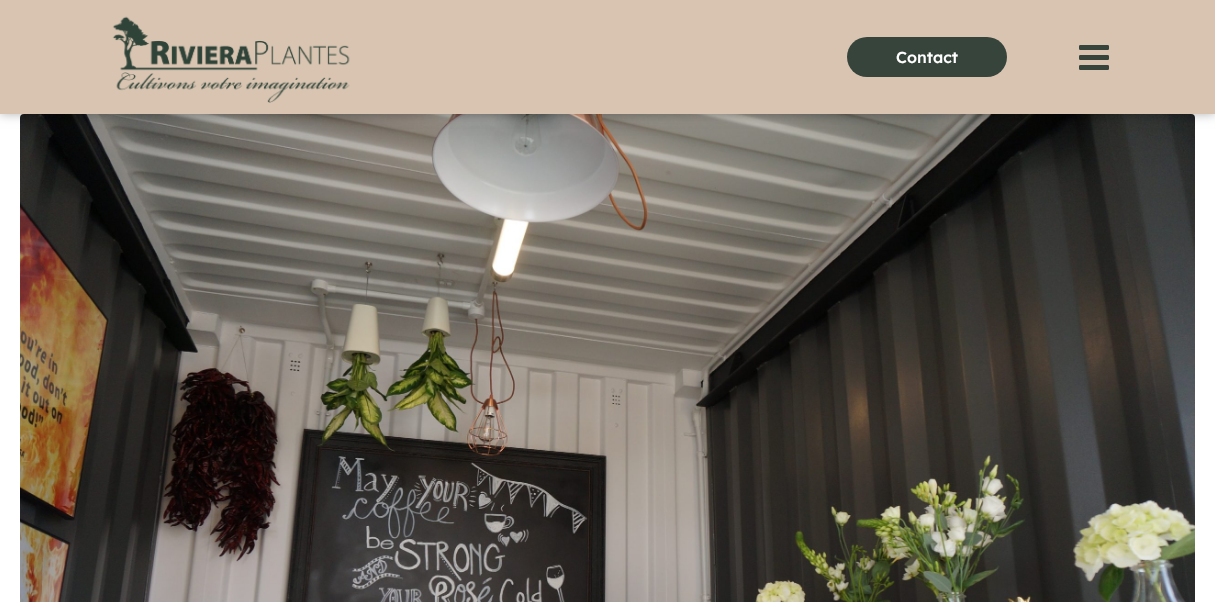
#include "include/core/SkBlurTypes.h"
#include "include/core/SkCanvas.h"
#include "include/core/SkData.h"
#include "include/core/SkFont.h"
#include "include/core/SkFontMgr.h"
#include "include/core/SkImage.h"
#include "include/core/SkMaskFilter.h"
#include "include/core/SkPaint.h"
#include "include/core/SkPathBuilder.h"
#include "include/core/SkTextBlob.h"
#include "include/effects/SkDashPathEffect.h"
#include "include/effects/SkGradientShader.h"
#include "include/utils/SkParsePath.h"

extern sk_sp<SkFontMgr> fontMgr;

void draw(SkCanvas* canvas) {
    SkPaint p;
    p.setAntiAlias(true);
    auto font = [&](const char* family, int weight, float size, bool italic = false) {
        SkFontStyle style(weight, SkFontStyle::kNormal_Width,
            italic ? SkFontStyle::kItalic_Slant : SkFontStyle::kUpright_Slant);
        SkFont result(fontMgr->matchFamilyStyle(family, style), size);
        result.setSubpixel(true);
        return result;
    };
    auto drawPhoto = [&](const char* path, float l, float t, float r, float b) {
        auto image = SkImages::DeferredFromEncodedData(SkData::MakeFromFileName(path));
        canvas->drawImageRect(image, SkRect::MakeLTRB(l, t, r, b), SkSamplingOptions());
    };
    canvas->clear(0xFFFFFFFF);
    drawPhoto("media/3.png", 20, 114, 1195, 602);
    p.setColor(0x4D000000);
    p.setMaskFilter(SkMaskFilter::MakeBlur(kNormal_SkBlurStyle, 5));
    canvas->drawRect(SkRect::MakeLTRB(0, 0, 1215, 114), p);
    p.setMaskFilter(nullptr);
    p.setColor(0xFFD8C4B1);
    canvas->drawRect(SkRect::MakeLTRB(0, 0, 1215, 114), p);
    drawPhoto("media/1.png", 112, 16, 350, 103);
    p.setColor(0xFF36443B);
    canvas->drawRoundRect(SkRect::MakeLTRB(847, 37, 1007, 77), 20, 20, p);
    auto font1 = font("Lexend Deca", 500, 16);
    p.setColor(0xFFFFFFFF);
    canvas->drawString("Contact", 896, 63, font1, p);
    drawPhoto("media/2.png", 1079, 45, 1109, 70);
}
